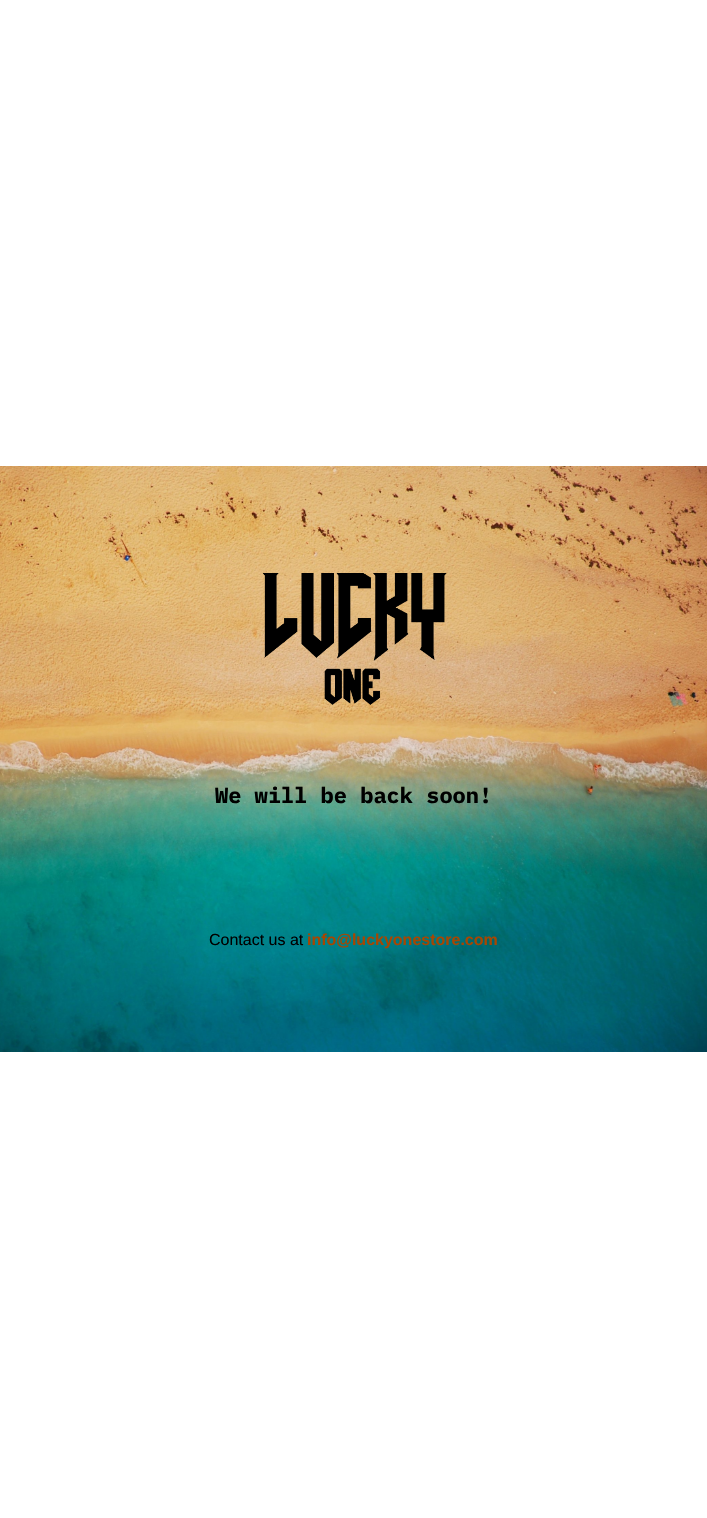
#include "include/core/SkBlurTypes.h"
#include "include/core/SkCanvas.h"
#include "include/core/SkData.h"
#include "include/core/SkFont.h"
#include "include/core/SkFontMgr.h"
#include "include/core/SkImage.h"
#include "include/core/SkMaskFilter.h"
#include "include/core/SkPaint.h"
#include "include/core/SkPathBuilder.h"
#include "include/core/SkTextBlob.h"
#include "include/effects/SkDashPathEffect.h"
#include "include/effects/SkGradientShader.h"
#include "include/utils/SkParsePath.h"

extern sk_sp<SkFontMgr> fontMgr;

void draw(SkCanvas* canvas) {
    SkPaint p;
    p.setAntiAlias(true);
    auto font = [&](const char* family, int weight, float size, bool italic = false) {
        SkFontStyle style(weight, SkFontStyle::kNormal_Width,
            italic ? SkFontStyle::kItalic_Slant : SkFontStyle::kUpright_Slant);
        SkFont result(fontMgr->matchFamilyStyle(family, style), size);
        result.setSubpixel(true);
        return result;
    };
    auto drawPhoto = [&](const char* path, float l, float t, float r, float b) {
        auto image = SkImages::DeferredFromEncodedData(SkData::MakeFromFileName(path));
        canvas->drawImageRect(image, SkRect::MakeLTRB(l, t, r, b), SkSamplingOptions());
    };
    canvas->clear(0xFFFFFFFF);
    drawPhoto("media/1.png", 0, 466, 707, 1052);
    drawPhoto("media/2.png", 262, 573, 447, 705);
    auto font1 = font("IBM Plex Mono", 700, 22);
    p.setColor(0xFF000000);
    canvas->drawString("We will be back soon!", 215, 803, font1, p);
    auto font2 = font("Liberation Sans", 400, 16);
    canvas->drawString("Contact us at", 209, 945, font2, p);
    auto font3 = font("Liberation Sans", 700, 16);
    p.setColor(0xFFA74602);
    canvas->drawString("info@luckyonestore.com", 307, 945, font3, p);
}
